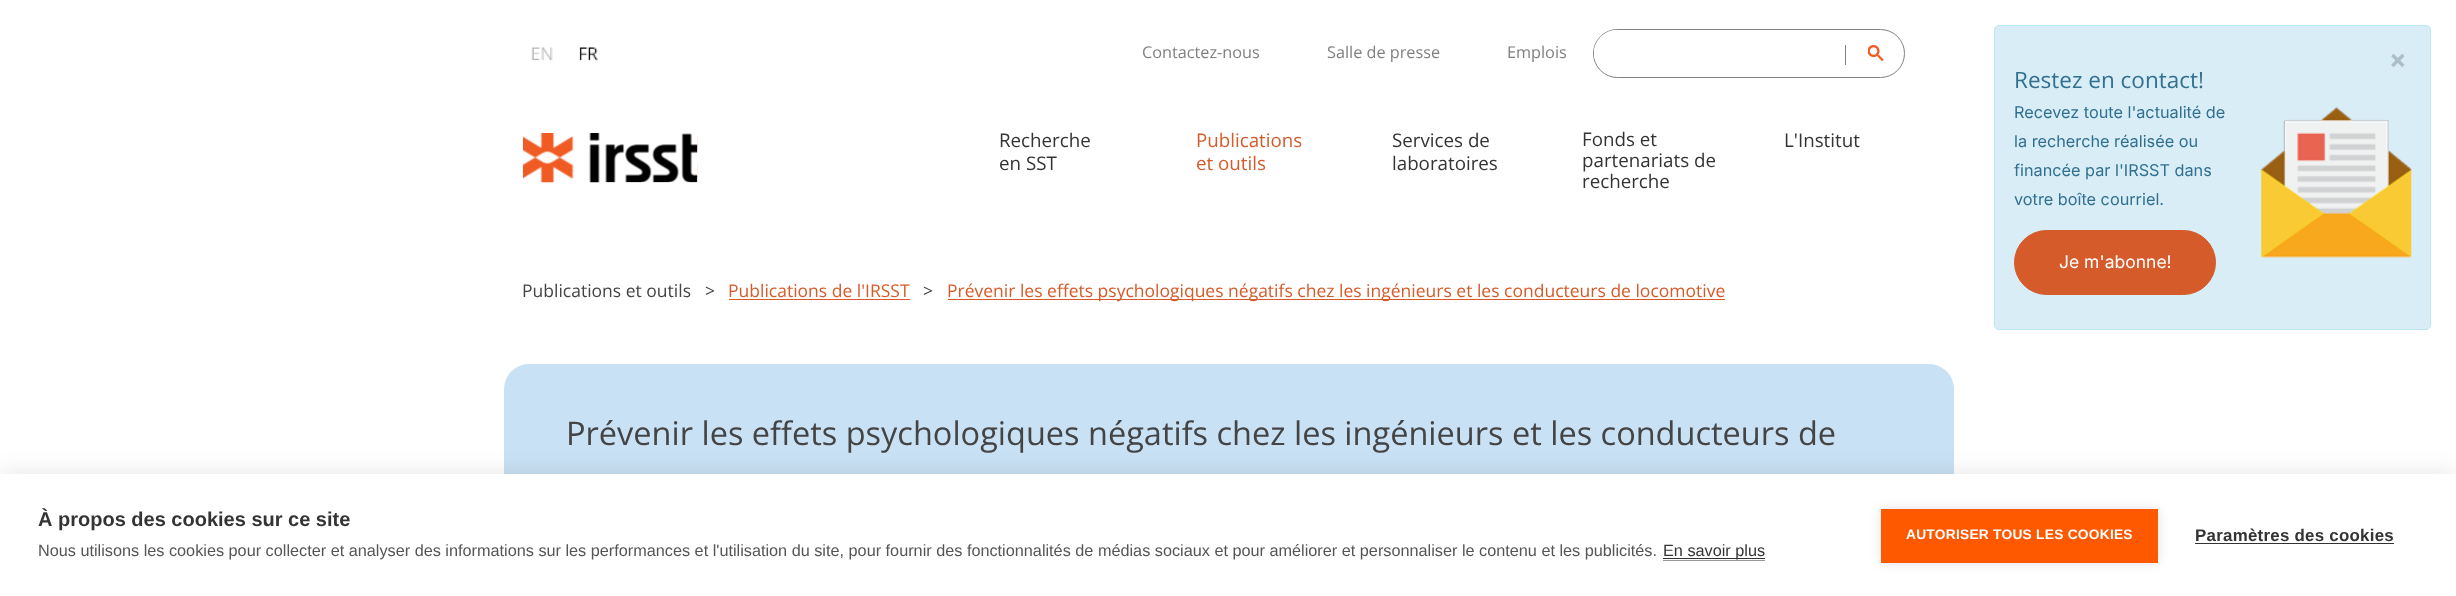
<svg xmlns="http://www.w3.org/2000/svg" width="2456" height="596">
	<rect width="100%" height="100%" fill="#FFFFFF" />
	<image x="531" y="47" width="22" height="14" href="assets/img1.png" />
	<image x="579" y="47" width="19" height="14" href="assets/img2.png" />
	<g font-family="Open Sans" font-size="16.25" fill="#808080">
		<text x="1142" y="58">Contactez-nous</text>
		<text x="1327" y="58">Salle de presse</text>
		<text x="1507" y="58">Emplois</text>
	</g>
	<rect x="1593.5" y="29.5" width="311" height="48" rx="24" fill="none" stroke="#808080" />
	<path d="M1617 30H1856V76H1617C1604.5 76 1594 65.5 1594 53C1594 40.5 1604.5 30 1617 30Z" fill="#FFFFFF" />
	<path d="M1617 30L1610 31H1855V75H1610L1617 76H1856V30ZM1595 60C1594 55 1594 51 1595 46Z" fill="#FFFFFF" fill-rule="evenodd" />
	<rect x="1845" y="45" width="1" height="20" fill="#808080" />
	<image x="1868" y="45" width="16" height="16" href="assets/img3.png" />
	<image x="523" y="133" width="175" height="50" href="assets/img4.png" />
	<g font-family="Open Sans" font-size="18.75" fill="#343434">
		<text x="999" y="147">Recherche</text>
		<text x="999" y="170">en SST</text>
	</g>
	<g font-family="Open Sans" font-size="18.75" fill="#D55B2B">
		<text x="1196" y="147">Publications</text>
		<text x="1196" y="170">et outils</text>
	</g>
	<g font-family="Open Sans" font-size="18.75" fill="#343434">
		<text x="1392" y="147">Services de</text>
		<text x="1392" y="170">laboratoires</text>
		<text x="1582" y="146">Fonds et</text>
		<text x="1582" y="167">partenariats de</text>
		<text x="1582" y="188">recherche</text>
		<text x="1784" y="147">L'Institut</text>
	</g>
	<g font-family="Open Sans" font-size="17.5" fill="#444444">
		<text x="522" y="297">Publications et outils</text>
		<text x="705" y="297">&gt;</text>
	</g>
	<text x="728" y="297" font-family="Open Sans" font-size="17.5" fill="#D55B2B">Publications de l'IRSST</text>
	<rect x="729" y="299" width="181" height="1" fill="#D55B2B" />
	<text x="923" y="297" font-family="Open Sans" font-size="17.5" fill="#444444">&gt;</text>
	<rect x="948" y="299" width="777" height="1" fill="#D55B2B" />
	<text x="947" y="297" font-family="Open Sans" font-size="17.5" fill="#D55B2B">Prévenir les effets psychologiques négatifs chez les ingénieurs et les conducteurs de locomotive</text>
	<rect x="504" y="364" width="1450" height="175" rx="25" fill="#C9E1F4" />
	<text x="566" y="445" font-family="Open Sans" font-size="32.5" fill="#444444">Prévenir les effets psychologiques négatifs chez les ingénieurs et les conducteurs de</text>
	<rect x="1994.5" y="25.5" width="436" height="304" rx="4.5" fill="#D9EDF7" stroke="#BCE8F1" />
	<text x="2389" y="68" font-family="Inter" font-size="26" font-weight="700" fill="#AEBEC6">×</text>
	<text x="2014" y="88" font-family="Open Sans" font-size="22.5" fill="#31708F">Restez en contact!</text>
	<text x="2014" y="118" font-family="Inter" font-size="16.25" fill="#31708F">Recevez toute l'actualité de</text>
	<image x="2261" y="107" width="151" height="151" href="assets/img5.png" />
	<g font-family="Inter" font-size="16.25" fill="#31708F">
		<text x="2014" y="147">la recherche réalisée ou</text>
		<text x="2014" y="176">financée par l'IRSST dans</text>
		<text x="2014" y="205">votre boîte courriel.</text>
	</g>
	<rect x="2014.5" y="230.5" width="201" height="64" rx="32" fill="#D55B2B" stroke="#D55B2B" />
	<text x="2059" y="268" font-family="Inter" font-size="17.5" fill="#FFFFFF">Je m'abonne!</text>
	<rect x="0" y="474" width="2456" height="122" fill="#000000" fill-opacity="0.1" filter="blur(12.5px)" />
	<rect x="0" y="474" width="2456" height="122" fill="#FFFFFF" />
	<text x="38" y="526" font-family="Liberation Sans" font-size="20" font-weight="700" fill="#343434">À propos des cookies sur ce site</text>
	<text x="38" y="556" font-family="Liberation Sans" font-size="16.25" fill="#555555">Nous utilisons les cookies pour collecter et analyser des informations sur les performances et l'utilisation du site, pour fournir des fonctionnalités de médias sociaux et pour améliorer et personnaliser le contenu et les publicités.</text>
	<rect x="1663" y="558" width="102" height="1" fill="#333333" />
	<text x="1663" y="556" font-family="Liberation Sans" font-size="16.25" fill="#343434">En savoir plus</text>
	<rect x="1663" y="560" width="102" height="1" fill="#999999" />
	<rect x="1881" y="509" width="277" height="54" fill="#000000" fill-opacity="0.12" filter="blur(6px)" />
	<rect x="1881" y="509" width="277" height="54" fill="#FF5900" />
	<text x="1906" y="539" font-family="Liberation Sans" font-size="13.75" font-weight="700" letter-spacing="0.25" fill="#FFFFFF">AUTORISER TOUS LES COOKIES</text>
	<text x="2195" y="541" font-family="Liberation Sans" font-size="16.9" font-weight="700" letter-spacing="0.25" fill="#343434">Paramètres des cookies</text>
	<rect x="2195" y="543" width="199" height="1" fill="#333333" />
</svg>
